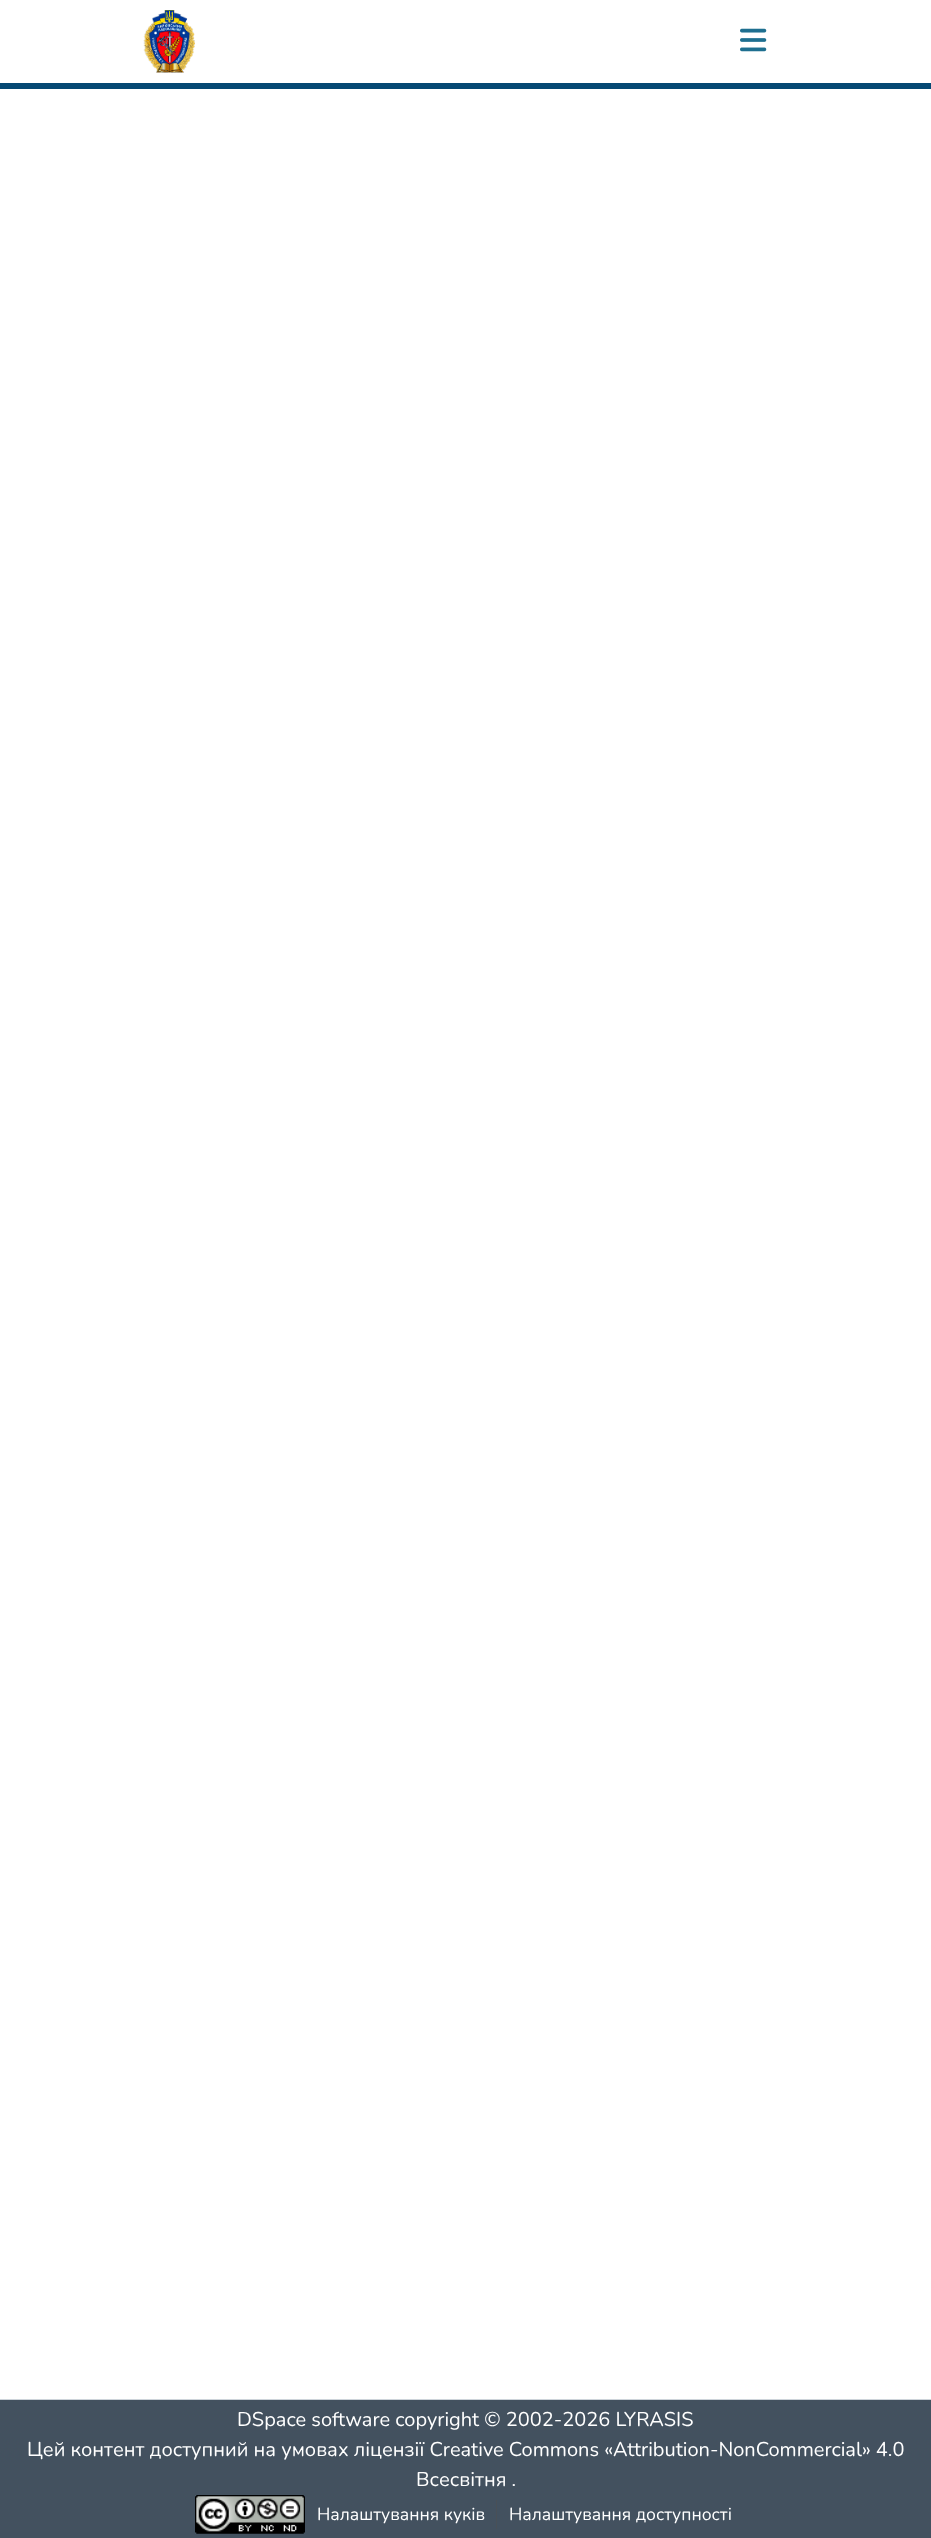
<svg xmlns="http://www.w3.org/2000/svg" width="931" height="2538">
	<rect width="100%" height="100%" fill="#FFFFFF" />
	<rect x="0" y="83" width="931" height="6" fill="#054873" />
	<image x="143" y="10" width="52" height="63" href="assets/img1.png" />
	<image x="740" y="28" width="27" height="24" href="assets/img2.png" />
	<rect x="0" y="2400" width="931" height="138" fill="#43515F" />
	<rect x="0" y="2399" width="931" height="1" fill="#CED4DA" />
	<g font-family="Nunito" font-size="20" fill="#FFFFFF">
		<text x="237" y="2426">DSpace software copyright © 2002-2026 LYRASIS</text>
		<text x="27" y="2456">Цей контент доступний на умовах ліцензії Creative Commons «Attribution-NonCommercial» 4.0</text>
		<text x="416" y="2486">Всесвітня .</text>
	</g>
	<image x="195" y="2495" width="110" height="39" href="assets/img3.png" />
	<text x="317" y="2520" font-family="Nunito" font-size="17.5" fill="#FFFFFF">Налаштування куків</text>
	<rect x="496" y="2500" width="1" height="29" fill="#495057" />
	<text x="509" y="2520" font-family="Nunito" font-size="17.5" fill="#FFFFFF">Налаштування доступності</text>
</svg>
